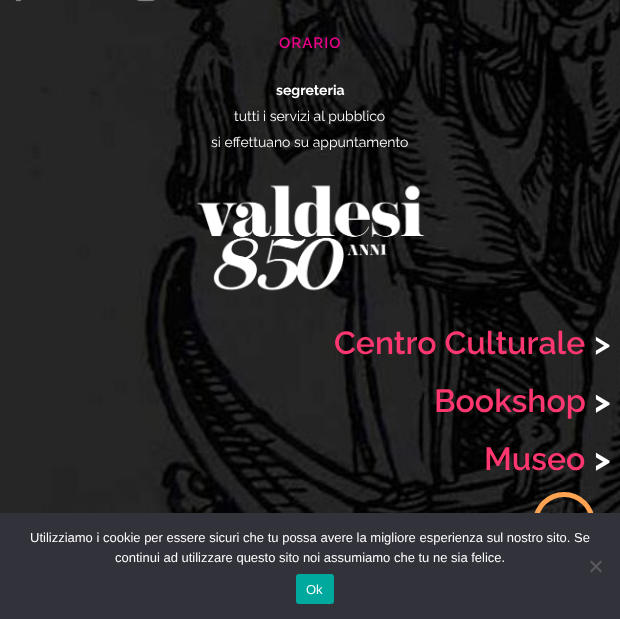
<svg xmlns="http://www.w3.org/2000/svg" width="620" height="619">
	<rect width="100%" height="100%" fill="#FFFFFF" />
	<image x="0" y="0" width="620" height="513" href="assets/img1.png" />
	<image x="15" y="0" width="6" height="2" href="assets/img2.png" />
	<image x="136" y="0" width="19" height="2" href="assets/img3.png" />
	<text x="279" y="48" font-family="Raleway" font-size="15" font-weight="600" letter-spacing="1" fill="#ED0089">ORARIO</text>
	<text x="276" y="95" font-family="Raleway" font-size="14" font-weight="700" fill="#FFFFFF">segreteria</text>
	<g font-family="Raleway" font-size="14" fill="#FFFFFF">
		<text x="234" y="121">tutti i servizi al pubblico</text>
		<text x="211" y="147">si effettuano su appuntamento</text>
	</g>
	<image x="197" y="185" width="228" height="106" href="assets/img4.png" />
	<text x="334" y="354" font-family="Raleway" font-size="32" font-weight="600" fill="#FE3770">Centro Culturale</text>
	<text x="594" y="354" font-family="Raleway" font-size="32" font-weight="600" fill="#FFFFFF">&gt;</text>
	<text x="434" y="412" font-family="Raleway" font-size="32" font-weight="600" fill="#FE3770">Bookshop</text>
	<text x="594" y="412" font-family="Raleway" font-size="32" font-weight="700" fill="#FFFFFF">&gt;</text>
	<text x="484" y="470" font-family="Raleway" font-size="32" font-weight="600" fill="#FE3770">Museo</text>
	<text x="594" y="470" font-family="Raleway" font-size="32" font-weight="700" fill="#FFFFFF">&gt;</text>
	<circle cx="564" cy="523" r="28.5" fill="none" stroke="#FFA352" stroke-width="5" />
	<rect x="0" y="513" width="620" height="106" fill="#32323A" />
	<g font-family="Liberation Sans" font-size="13" fill="#FFFFFF">
		<text x="30" y="542">Utilizziamo i cookie per essere sicuri che tu possa avere la migliore esperienza sul nostro sito. Se</text>
		<text x="115" y="562">continui ad utilizzare questo sito noi assumiamo che tu ne sia felice.</text>
	</g>
	<path d="M600.5 560.5L602 562L591.5 572.5L590 571Z" fill="#59595D" />
	<path d="M590 562L591.5 560.5L602 571L600.5 572.5Z" fill="#59595D" />
	<rect x="296" y="574" width="38" height="30" rx="3" fill="#00A99D" />
	<text x="306" y="594" font-family="Liberation Sans" font-size="13" fill="#FFFFFF">Ok</text>
</svg>
